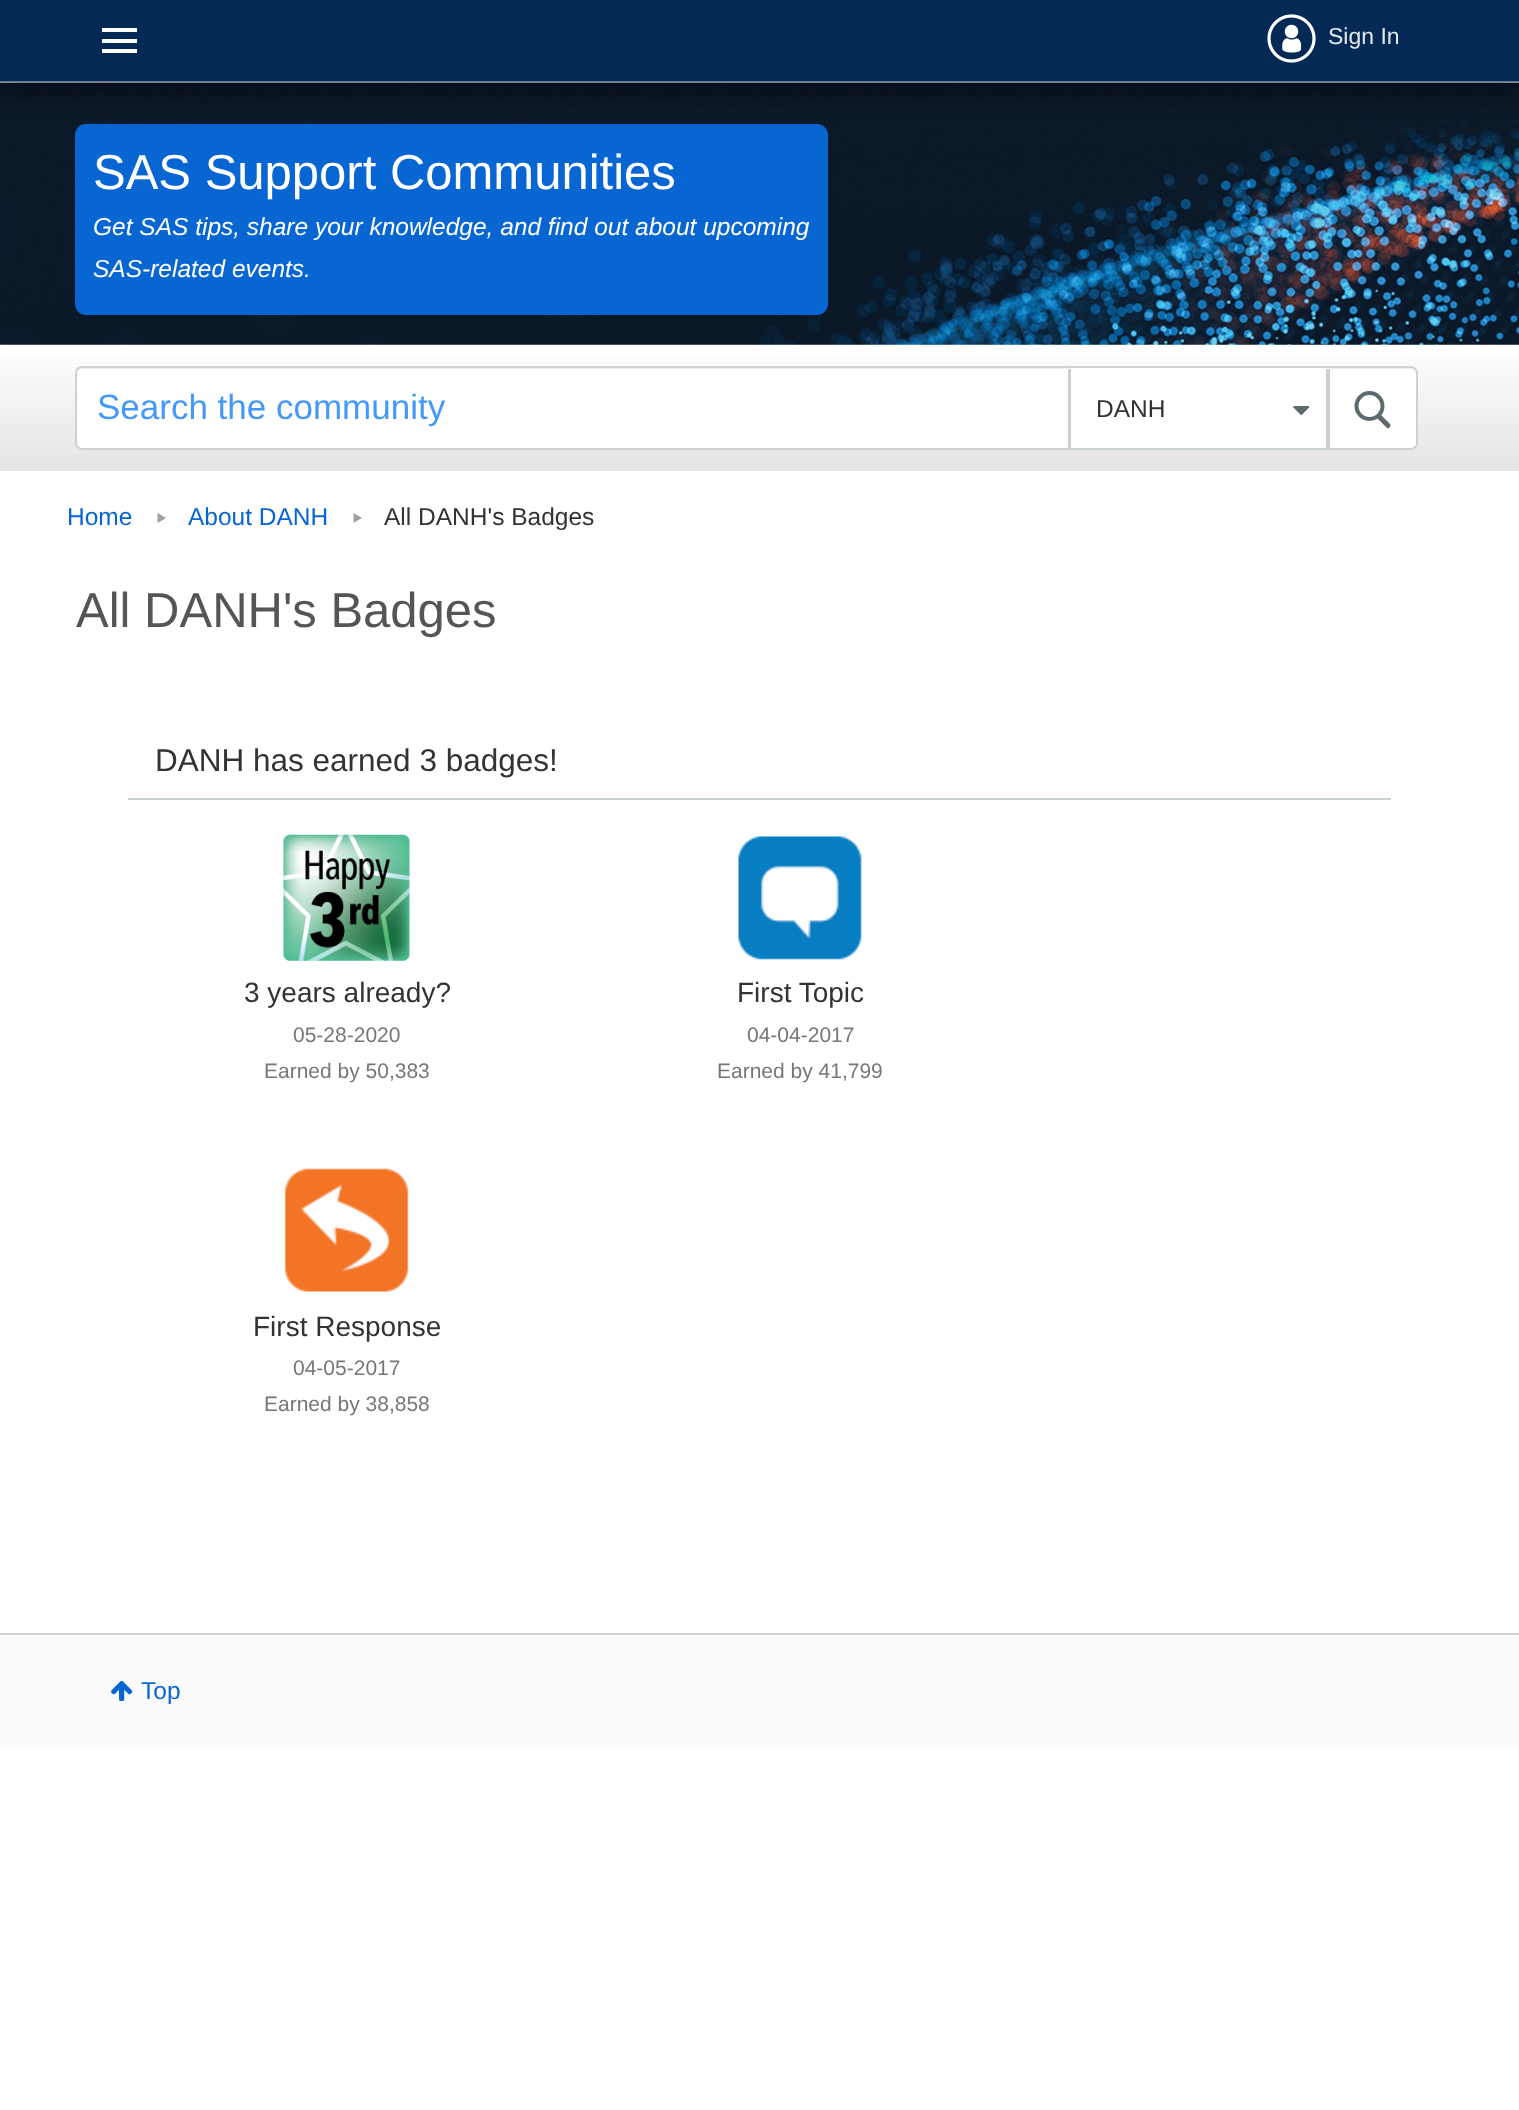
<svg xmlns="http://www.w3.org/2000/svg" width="1519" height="2110">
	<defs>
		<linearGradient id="g1" gradientUnits="userSpaceOnUse" x1="760" y1="345" x2="760" y2="471"><stop offset="0" stop-color="#FFFFFF" /><stop offset="1" stop-color="#E4E4E4" /></linearGradient>
	</defs>
	<rect width="100%" height="100%" fill="#FFFFFF" />
	<image x="0" y="82" width="1519" height="263" href="assets/img2.png" />
	<rect x="0" y="14" width="1519" height="82" fill="#000000" fill-opacity="0.4" filter="blur(10.5px)" />
	<rect x="0" y="0" width="1519" height="82" fill="#032954" />
	<rect x="0" y="81" width="1519" height="2" fill="#FFFFFF" fill-opacity="0.4" />
	<rect x="102" y="28" width="35" height="4" fill="#FFFFFF" />
	<rect x="102" y="39" width="35" height="4" fill="#FFFFFF" />
	<rect x="102" y="49" width="35" height="4" fill="#FFFFFF" />
	<image x="1267" y="14" width="49" height="49" href="assets/img1.png" />
	<text x="1328" y="44" font-family="Liberation Sans" font-size="23" fill="#E4E8EA">Sign In</text>
	<rect x="75" y="124" width="753" height="191" rx="11" fill="#0766D1" />
	<text x="93" y="189" font-family="Liberation Sans" font-size="49" fill="#FFFFFF">SAS Support Communities</text>
	<g font-family="Liberation Sans" font-size="24.5" font-style="italic" fill="#FFFFFF">
		<text x="93" y="235">Get SAS tips, share your knowledge, and find out about upcoming</text>
		<text x="93" y="277">SAS-related events.</text>
	</g>
	<rect x="0" y="357" width="1519" height="114" fill="url(#g1)" />
	<rect x="75" y="366" width="1343" height="84" rx="7" fill="#FFFFFF" />
	<path d="M82 369H1410C1413 369 1416 372 1416 374C1416 371 1414 368 1411 368H82C79 368 77 371 77 374C77 372 79 369 82 369Z" fill="#ECECEC" />
	<rect x="76" y="367" width="1341" height="82" rx="6" fill="none" stroke="#D0D0D0" stroke-width="2" />
	<text x="97" y="419" font-family="Liberation Sans" font-size="35" fill="#4398F9">Search the community</text>
	<circle cx="1369.5" cy="406" r="13" fill="none" stroke="#5C6A6E" stroke-width="4" />
	<path d="M1379.5 417L1388 425.5" fill="none" stroke="#5C6A6E" stroke-width="5" stroke-linecap="round" />
	<path d="M1072 366H1330V448H1072C1070 448 1068 446 1068 444V370C1068 368 1070 366 1072 366Z" fill="#FFFFFF" />
	<rect x="1069" y="366" width="261" height="2" fill="#D0D0D0" />
	<path d="M1330 369V450L1326 448V369Z" fill="#D0D0D0" />
	<path d="M1330 450H1068L1071 448H1326Z" fill="#CBD3D5" />
	<path d="M1068 450V369H1071V448Z" fill="#D0D0D0" />
	<text x="1096" y="417" font-family="Liberation Sans" font-size="24.5" fill="#333333">DANH</text>
	<image x="1293" y="406" width="17" height="9" href="assets/img3.png" />
	<text x="67" y="525" font-family="Liberation Sans" font-size="24.5" fill="#0766D1">Home</text>
	<path d="M166 518L157.5 523V513Z" fill="#A1A1A1" />
	<text x="188" y="525" font-family="Liberation Sans" font-size="24.5" fill="#0766D1">About DANH</text>
	<path d="M362 518L353.5 523V513Z" fill="#A1A1A1" />
	<text x="384" y="525" font-family="Liberation Sans" font-size="24.5" fill="#333333">All DANH's Badges</text>
	<text x="76" y="627" font-family="Liberation Sans" font-size="49" fill="#555555">All DANH's Badges</text>
	<rect x="128" y="798" width="1263" height="2" fill="#CBD3D5" />
	<text x="155" y="771" font-family="Liberation Sans" font-size="31.5" fill="#333333">DANH has earned 3 badges!</text>
	<image x="283" y="834" width="127" height="127" href="assets/img4.png" />
	<text x="244" y="1002" font-family="Liberation Sans" font-size="28" fill="#333333">3 years already?</text>
	<g font-family="Liberation Sans" font-size="21" fill="#777777">
		<text x="293" y="1042">05-28-2020</text>
		<text x="264" y="1078">Earned by 50,383</text>
	</g>
	<image x="738" y="836" width="124" height="124" href="assets/img5.png" />
	<text x="737" y="1002" font-family="Liberation Sans" font-size="28" fill="#333333">First Topic</text>
	<g font-family="Liberation Sans" font-size="21" fill="#777777">
		<text x="747" y="1042">04-04-2017</text>
		<text x="717" y="1078">Earned by 41,799</text>
	</g>
	<image x="284" y="1168" width="125" height="124" href="assets/img6.png" />
	<text x="253" y="1336" font-family="Liberation Sans" font-size="28" fill="#333333">First Response</text>
	<g font-family="Liberation Sans" font-size="21" fill="#777777">
		<text x="293" y="1375">04-05-2017</text>
		<text x="264" y="1411">Earned by 38,858</text>
	</g>
	<rect x="0" y="1635" width="1519" height="112" fill="#FBFBFB" />
	<rect x="0" y="1633" width="1519" height="2" fill="#CBD3D5" />
	<image x="111" y="1680" width="22" height="21" href="assets/img7.png" />
	<text x="141" y="1699" font-family="Liberation Sans" font-size="24.5" fill="#0766D1">Top</text>
</svg>
